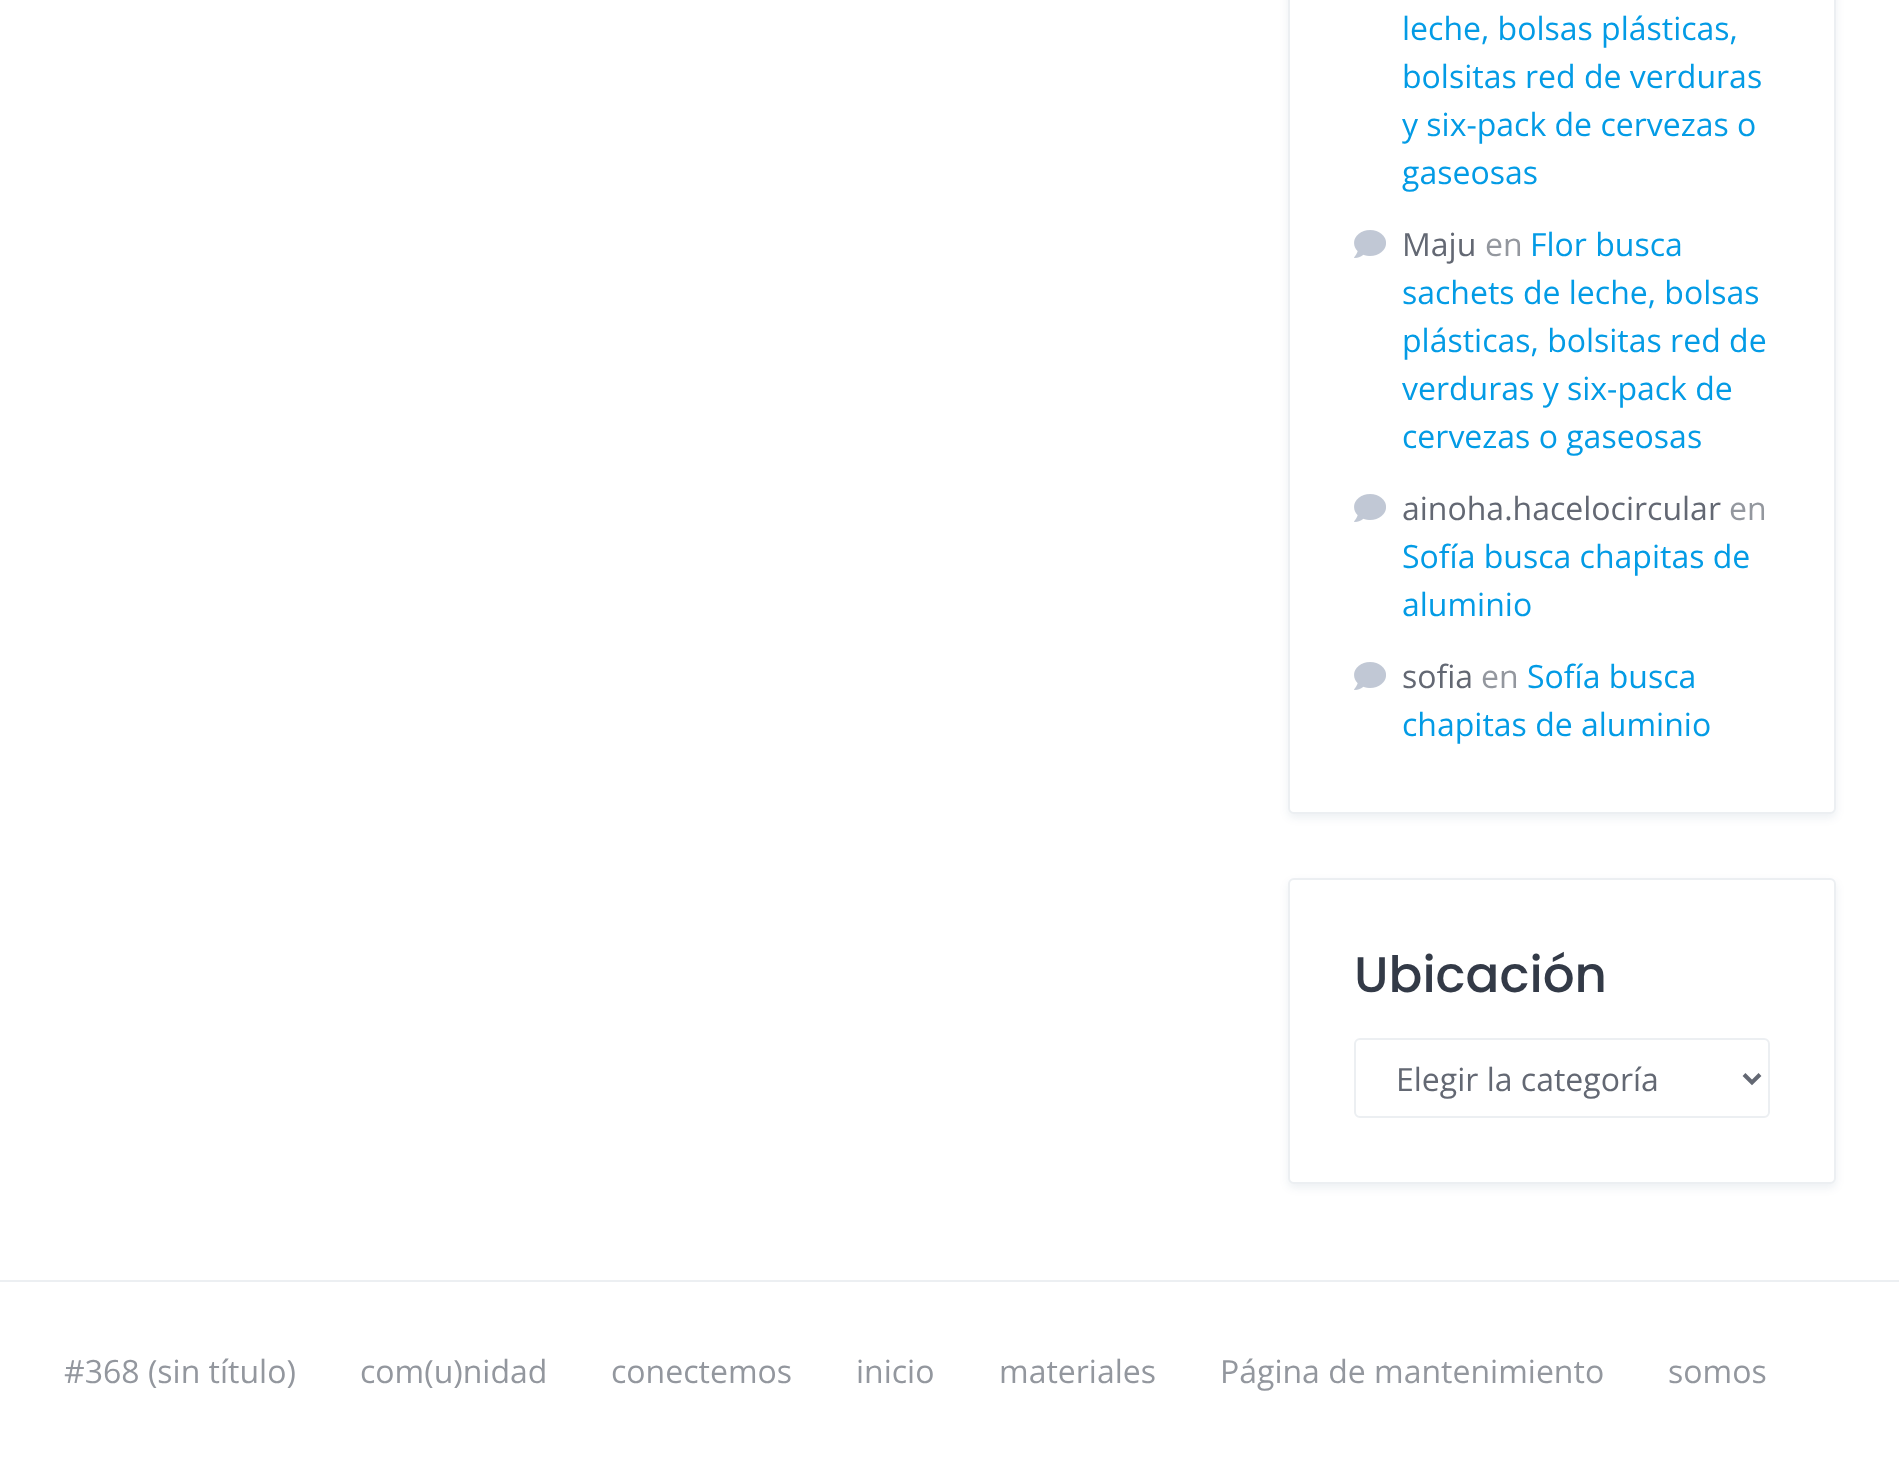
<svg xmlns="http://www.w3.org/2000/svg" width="1899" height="1458">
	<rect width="100%" height="100%" fill="#FFFFFF" />
	<rect x="1288" y="-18" width="548" height="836" rx="6" fill="#072456" fill-opacity="0.07" filter="blur(4px)" />
	<rect x="1289" y="-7" width="546" height="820" rx="5" fill="#FFFFFF" stroke="#ECEFF2" stroke-width="2" />
	<g font-family="Open Sans" font-size="32" fill="#039BE5">
		<text x="1402" y="40">leche, bolsas plásticas,</text>
		<text x="1402" y="88">bolsitas red de verduras</text>
		<text x="1402" y="136">y six-pack de cervezas o</text>
		<text x="1402" y="184">gaseosas</text>
	</g>
	<image x="1354" y="230" width="32" height="28" href="assets/img1.png" />
	<text x="1402" y="256" font-family="Open Sans" font-size="32" fill="#636873">Maju</text>
	<text x="1485" y="256" font-family="Open Sans" font-size="32" fill="#93979E">en</text>
	<g font-family="Open Sans" font-size="32" fill="#039BE5">
		<text x="1530" y="256">Flor busca</text>
		<text x="1402" y="304">sachets de leche, bolsas</text>
		<text x="1402" y="352">plásticas, bolsitas red de</text>
		<text x="1402" y="400">verduras y six-pack de</text>
		<text x="1402" y="448">cervezas o gaseosas</text>
	</g>
	<image x="1354" y="494" width="32" height="28" href="assets/img1.png" />
	<text x="1402" y="520" font-family="Open Sans" font-size="32" fill="#636873">ainoha.hacelocircular</text>
	<text x="1729" y="520" font-family="Open Sans" font-size="32" fill="#93979E">en</text>
	<g font-family="Open Sans" font-size="32" fill="#039BE5">
		<text x="1402" y="568">Sofía busca chapitas de</text>
		<text x="1402" y="616">aluminio</text>
	</g>
	<image x="1354" y="662" width="32" height="28" href="assets/img1.png" />
	<text x="1402" y="688" font-family="Open Sans" font-size="32" fill="#636873">sofia</text>
	<text x="1481" y="688" font-family="Open Sans" font-size="32" fill="#93979E">en</text>
	<g font-family="Open Sans" font-size="32" fill="#039BE5">
		<text x="1527" y="688">Sofía busca</text>
		<text x="1402" y="736">chapitas de aluminio</text>
	</g>
	<rect x="1288" y="882" width="548" height="306" rx="6" fill="#072456" fill-opacity="0.07" filter="blur(4px)" />
	<rect x="1289" y="879" width="546" height="304" rx="5" fill="#FFFFFF" stroke="#ECEFF2" stroke-width="2" />
	<text x="1354" y="992" font-family="Poppins" font-size="50" font-weight="500" fill="#333A47">Ubicación</text>
	<rect x="1355" y="1039" width="414" height="78" rx="5" fill="none" stroke="#ECEFF2" stroke-width="2" />
	<path d="M1744 1074.5L1752 1082.5L1760 1074.5" fill="none" stroke="#636873" stroke-width="4" />
	<text x="1396" y="1091" font-family="Open Sans" font-size="32" fill="#636873">Elegir la categoría</text>
	<rect x="0" y="1280" width="1899" height="2" fill="#ECEFF2" />
	<g font-family="Open Sans" font-size="32" fill="#93979E">
		<text x="64" y="1383">#368 (sin título)</text>
		<text x="360" y="1383">com(u)nidad</text>
		<text x="611" y="1383">conectemos</text>
		<text x="856" y="1383">inicio</text>
		<text x="999" y="1383">materiales</text>
		<text x="1220" y="1383">Página de mantenimiento</text>
		<text x="1668" y="1383">somos</text>
	</g>
</svg>
